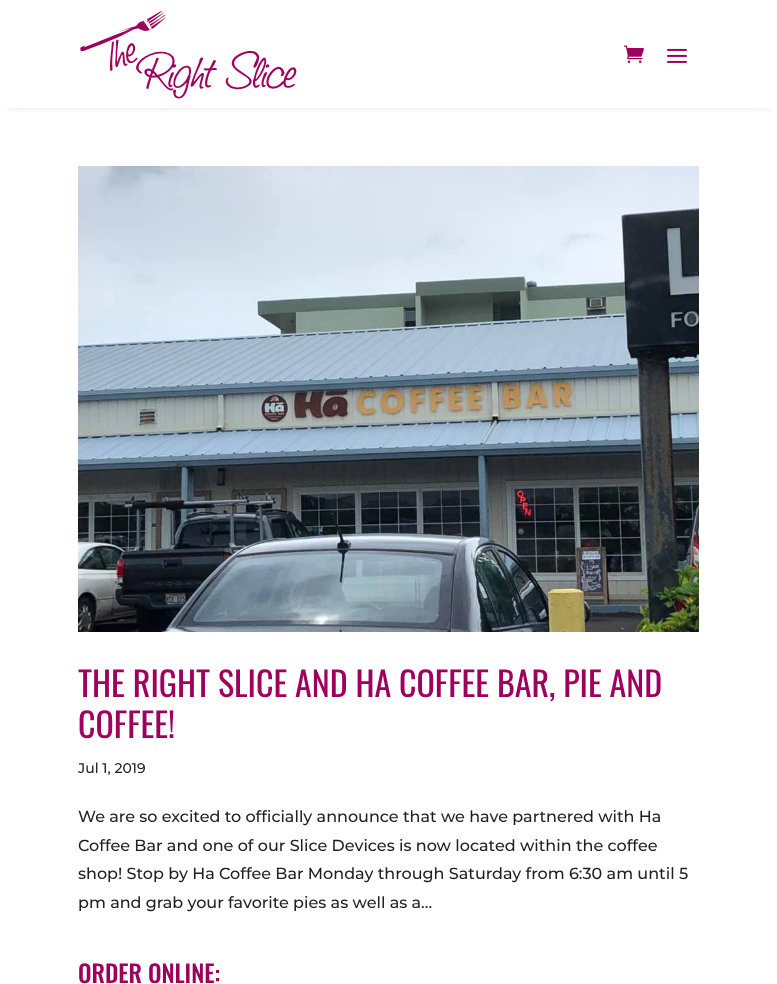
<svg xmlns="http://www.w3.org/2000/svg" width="777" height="984">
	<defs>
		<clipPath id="clip1"><rect x="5" y="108" width="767" height="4" /></clipPath>
	</defs>
	<rect width="100%" height="100%" fill="#FFFFFF" />
	<g clip-path="url(#clip1)">
		<rect x="6" y="6" width="765" height="96" fill="#000000" fill-opacity="0.3" filter="blur(6.5px)" />
	</g>
	<image x="80" y="10" width="217" height="89" href="assets/img1.png" />
	<image x="624" y="45" width="20" height="18" href="assets/img2.png" />
	<image x="667" y="48" width="20" height="15" href="assets/img3.png" />
	<image x="78" y="166" width="621" height="466" href="assets/img4.png" />
	<g font-family="Oswald" font-size="34" fill="#9E015D">
		<text x="78" y="697">THE RIGHT SLICE AND HA COFFEE BAR, PIE AND</text>
		<text x="78" y="738">COFFEE!</text>
	</g>
	<text x="78" y="773" font-family="Montserrat" font-size="14" font-weight="500" fill="#1F1F1F">Jul 1, 2019</text>
	<g font-family="Montserrat" font-size="16" font-weight="500" fill="#1F1F1F">
		<text x="78" y="822">We are so excited to officially announce that we have partnered with Ha</text>
		<text x="78" y="851">Coffee Bar and one of our Slice Devices is now located within the coffee</text>
		<text x="78" y="879">shop! Stop by Ha Coffee Bar Monday through Saturday from 6:30 am until 5</text>
		<text x="78" y="908">pm and grab your favorite pies as well as a...</text>
	</g>
	<text x="78" y="983" font-family="Oswald" font-size="24" font-weight="500" fill="#9E015D">ORDER ONLINE:</text>
</svg>
